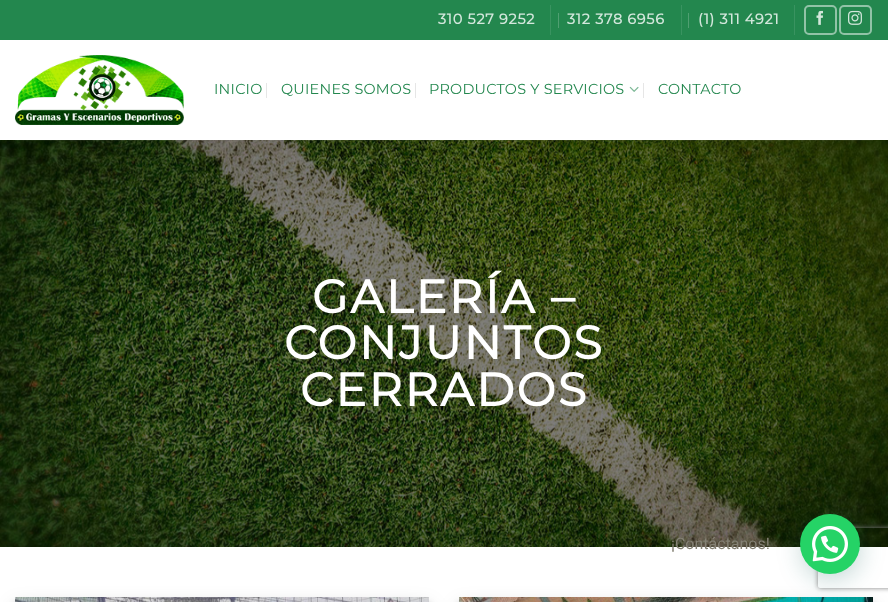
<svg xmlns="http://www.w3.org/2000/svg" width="888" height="602">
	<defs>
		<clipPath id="clip1"><path d="M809 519H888V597H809ZM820 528H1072C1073 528 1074 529 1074 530V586C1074 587 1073 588 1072 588H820C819 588 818 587 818 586V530C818 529 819 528 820 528Z" clip-rule="evenodd" /></clipPath>
	</defs>
	<rect width="100%" height="100%" fill="#FFFFFF" />
	<rect x="0" y="0" width="888" height="40" fill="#23874E" />
	<text x="438" y="24" font-family="Montserrat" font-size="14.4" font-weight="700" letter-spacing="0.75" fill="#D3E7DC">310 527 9252</text>
	<rect x="550" y="5" width="1" height="30" fill="#399360" />
	<rect x="558" y="13" width="1" height="15" fill="#4F9F71" />
	<text x="567" y="24" font-family="Montserrat" font-size="14.4" font-weight="700" letter-spacing="0.75" fill="#D3E7DC">312 378 6956</text>
	<rect x="681" y="5" width="1" height="30" fill="#399360" />
	<rect x="688" y="13" width="1" height="15" fill="#4F9F71" />
	<text x="698" y="24" font-family="Montserrat" font-size="14.4" font-weight="700" letter-spacing="0.75" fill="#D3E7DC">(1) 311 4921</text>
	<rect x="794" y="5" width="1" height="30" fill="#399360" />
	<rect x="805" y="6" width="31" height="28" rx="4" fill="none" stroke="#91C3A7" stroke-width="2" />
	<image x="816" y="10" width="7" height="15" href="assets/img1.png" />
	<rect x="840" y="6" width="31" height="28" rx="4" fill="none" stroke="#91C3A7" stroke-width="2" />
	<image x="848" y="10" width="14" height="15" href="assets/img2.png" />
	<image x="15" y="55" width="169" height="70" href="assets/img3.png" />
	<text x="214" y="94" font-family="Montserrat" font-size="14.4" font-weight="100" letter-spacing="0.25" fill="#23874E">INICIO</text>
	<rect x="266" y="83" width="1" height="15" fill="#E6E6E6" />
	<text x="281" y="94" font-family="Montserrat" font-size="14.4" font-weight="100" letter-spacing="0.25" fill="#23874E">QUIENES SOMOS</text>
	<rect x="415" y="83" width="1" height="15" fill="#E6E6E6" />
	<text x="429" y="94" font-family="Montserrat" font-size="14.4" font-weight="100" letter-spacing="0.25" fill="#23874E">PRODUCTOS Y SERVICIOS</text>
	<image x="629" y="86" width="10" height="6" href="assets/img4.png" />
	<rect x="643" y="83" width="1" height="15" fill="#E6E6E6" />
	<text x="658" y="94" font-family="Montserrat" font-size="14.4" font-weight="100" letter-spacing="0.25" fill="#23874E">CONTACTO</text>
	<image x="0" y="140" width="888" height="407" href="assets/img5.png" />
	<rect x="15" y="140" width="858" height="1" fill="#777777" fill-opacity="0.1" />
	<g font-family="Montserrat" font-size="46.5" font-weight="700" letter-spacing="2.25" fill="#FFFFFF">
		<text x="312" y="313">GALERÍA –</text>
		<text x="284" y="359">CONJUNTOS</text>
		<text x="300" y="406">CERRADOS</text>
	</g>
	<rect x="15" y="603" width="414" height="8" fill="#000000" fill-opacity="0.22" filter="blur(3px)" />
	<rect x="15" y="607" width="414" height="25" fill="#000000" fill-opacity="0.19" filter="blur(10px)" />
	<image x="15" y="597" width="414" height="5" href="assets/img6.png" />
	<rect x="459" y="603" width="414" height="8" fill="#000000" fill-opacity="0.22" filter="blur(3px)" />
	<rect x="459" y="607" width="414" height="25" fill="#000000" fill-opacity="0.19" filter="blur(10px)" />
	<image x="459" y="597" width="414" height="5" href="assets/img7.png" />
	<rect x="801" y="520" width="60" height="60" rx="30" fill="#075E54" fill-opacity="0.24" filter="blur(12px)" />
	<g clip-path="url(#clip1)">
		<rect x="818" y="528" width="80" height="60" rx="2" fill="#808080" filter="blur(2.5px)" />
	</g>
	<circle cx="830" cy="544" r="30" fill="#25D366" />
	<image x="812" y="526" width="36" height="36" href="assets/img8.png" />
	<text x="671" y="549" font-family="Roboto" font-size="16" fill="#848174">¡Contáctanos!</text>
</svg>
